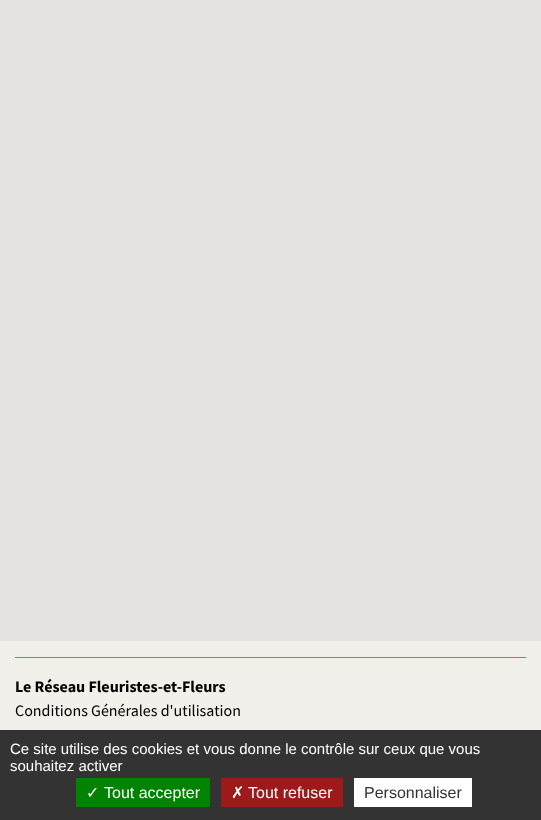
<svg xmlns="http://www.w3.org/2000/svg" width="541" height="820">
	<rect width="100%" height="100%" fill="#F1F0EB" />
	<rect x="0" y="0" width="541" height="641" fill="#E5E3DF" />
	<rect x="15" y="657" width="511" height="1" fill="#EA601F" />
	<text x="15" y="692" font-family="Source Sans Pro" font-size="16" font-weight="700" fill="#000000">Le Réseau Fleuristes-et-Fleurs</text>
	<text x="15" y="716" font-family="Source Sans Pro" font-size="16" fill="#000000">Conditions Générales d'utilisation</text>
	<rect x="0" y="730" width="541" height="90" fill="#333333" />
	<g font-family="Liberation Sans" font-size="15" fill="#FFFFFF">
		<text x="10" y="754">Ce site utilise des cookies et vous donne le contrôle sur ceux que vous</text>
		<text x="10" y="771">souhaitez activer</text>
	</g>
	<rect x="76" y="778" width="134" height="29" fill="#008300" />
	<text x="86" y="798" font-family="DejaVu Sans" font-size="16" fill="#FFFFFF">✓</text>
	<text x="104" y="798" font-family="Liberation Sans" font-size="16" fill="#FFFFFF">Tout accepter</text>
	<rect x="221" y="778" width="122" height="29" fill="#9C1A1A" />
	<text x="231" y="798" font-family="DejaVu Sans" font-size="16" fill="#FFFFFF">✗</text>
	<text x="248" y="798" font-family="Liberation Sans" font-size="16" fill="#FFFFFF">Tout refuser</text>
	<rect x="354" y="778" width="118" height="29" fill="#FFFFFF" />
	<text x="364" y="798" font-family="Liberation Sans" font-size="16" fill="#333333">Personnaliser</text>
</svg>
